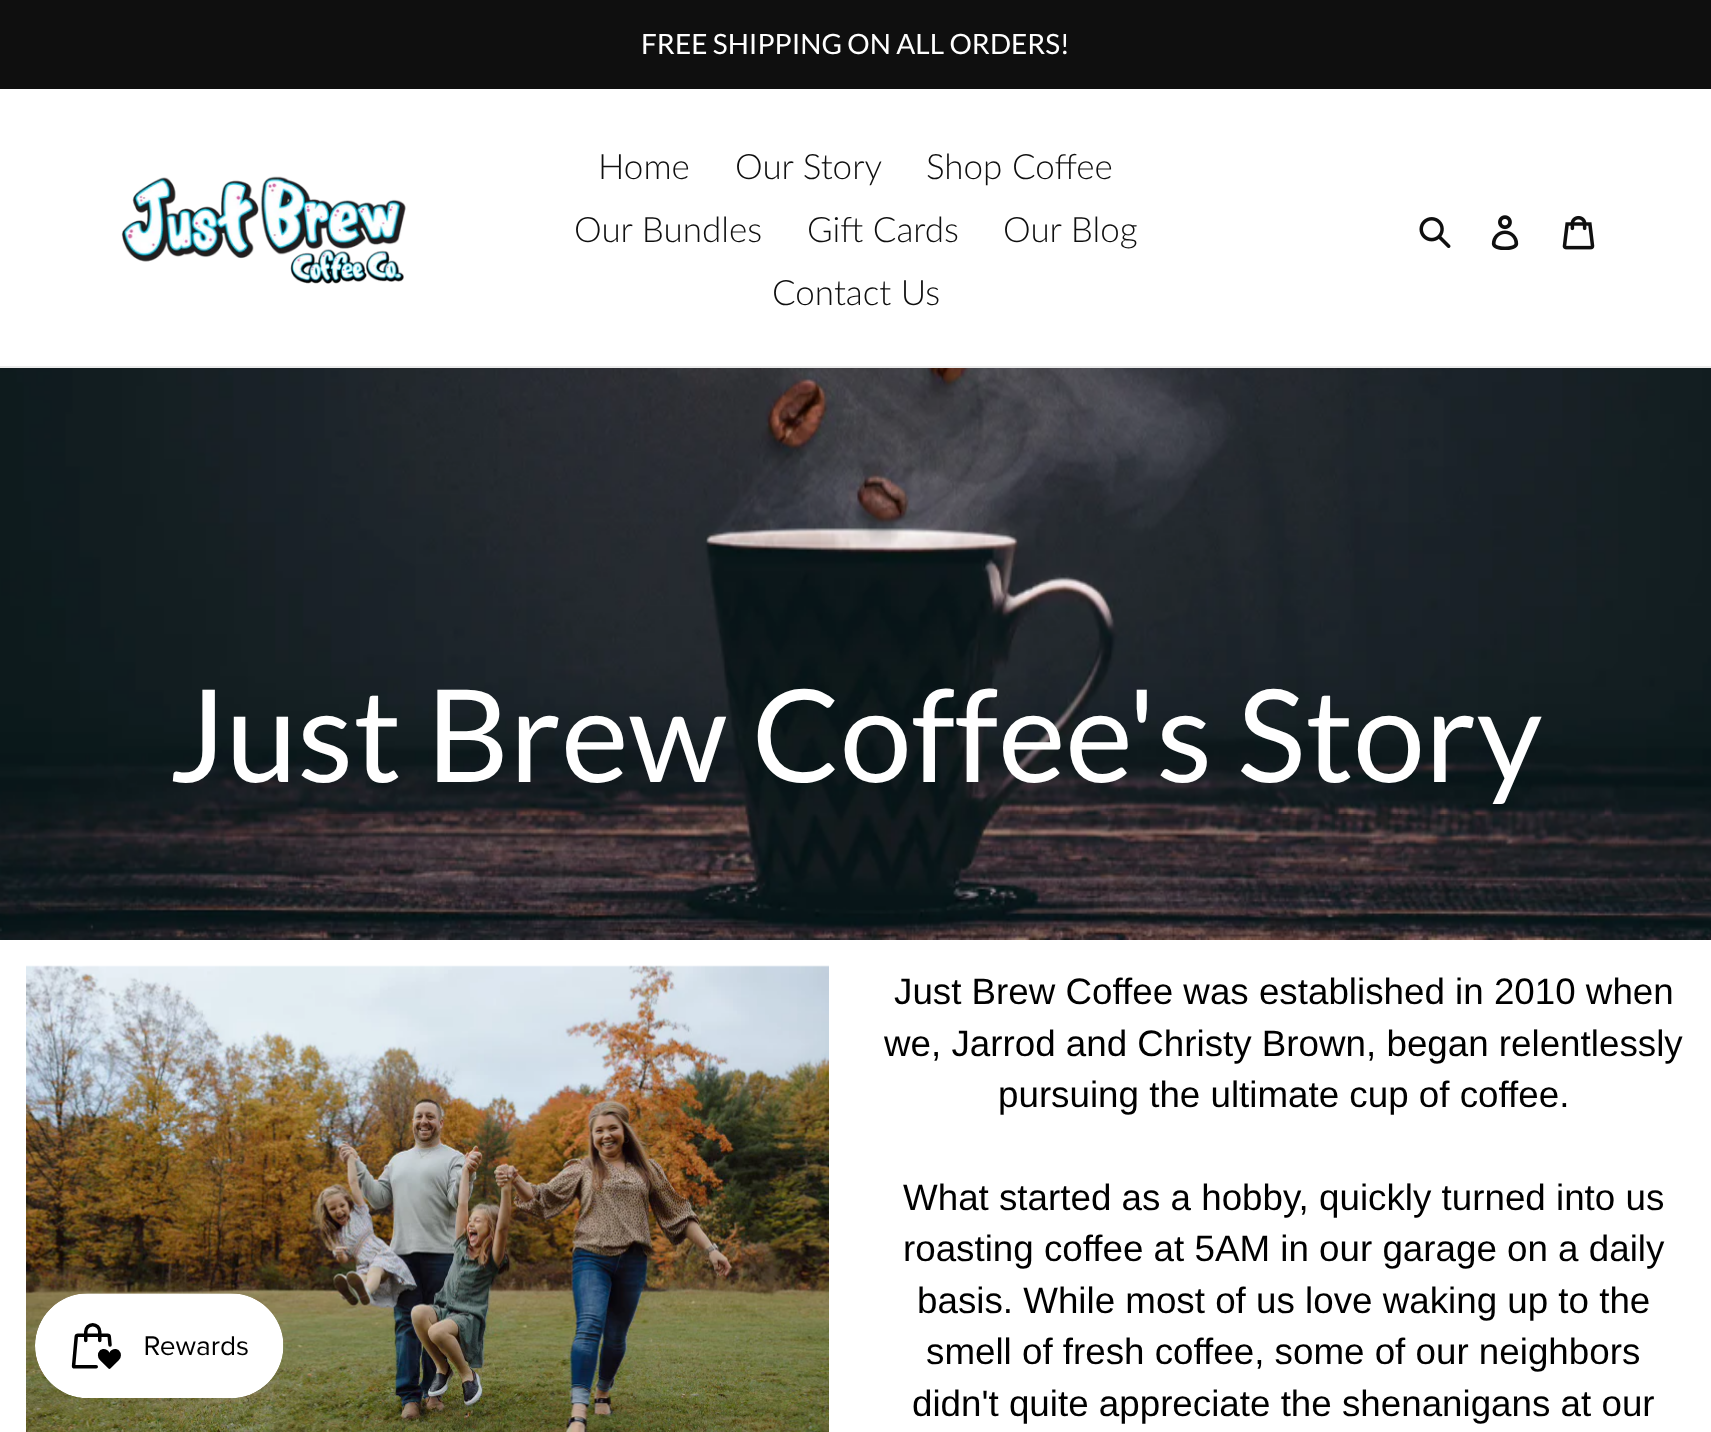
<svg xmlns="http://www.w3.org/2000/svg" width="1711" height="1432">
	<rect width="100%" height="100%" fill="#FFFFFF" />
	<rect x="0" y="0" width="1711" height="89" fill="#0F0F0F" />
	<text x="641" y="54" font-family="Lato" font-size="28" fill="#FFFFFF">FREE SHIPPING ON ALL ORDERS!</text>
	<rect x="0" y="366" width="1711" height="2" fill="#EBEBEB" />
	<image x="121" y="176" width="285" height="108" href="assets/img1.png" />
	<g font-family="Lato" font-size="35" font-weight="300" fill="#0F0F0F">
		<text x="598" y="179">Home</text>
		<text x="735" y="179">Our Story</text>
		<text x="926" y="179">Shop Coffee</text>
		<text x="574" y="242">Our Bundles</text>
		<text x="807" y="242">Gift Cards</text>
		<text x="1003" y="242">Our Blog</text>
		<text x="772" y="305">Contact Us</text>
	</g>
	<image x="1419" y="217" width="32" height="31" href="assets/img2.png" />
	<image x="1491" y="215" width="28" height="35" href="assets/img3.png" />
	<image x="1562" y="215" width="33" height="35" href="assets/img4.png" />
	<image x="26" y="965" width="803" height="467" href="assets/img7.png" />
	<image x="35" y="1293" width="249" height="105" href="assets/img5.png" />
	<image x="0" y="368" width="1711" height="572" href="assets/img6.png" />
	<text x="169" y="782" font-family="Lato" font-size="128.6" fill="#FFFFFF">Just Brew Coffee's Story</text>
	<g font-family="Liberation Sans" font-size="36.75" fill="#000000">
		<text x="894" y="1004">Just Brew Coffee was established in 2010 when</text>
		<text x="884" y="1056">we, Jarrod and Christy Brown, began relentlessly</text>
		<text x="998" y="1107">pursuing the ultimate cup of coffee.</text>
		<text x="903" y="1210">What started as a hobby, quickly turned into us</text>
		<text x="903" y="1261">roasting coffee at 5AM in our garage on a daily</text>
		<text x="917" y="1313">basis. While most of us love waking up to the</text>
		<text x="926" y="1364">smell of fresh coffee, some of our neighbors</text>
		<text x="912" y="1416">didn't quite appreciate the shenanigans at our</text>
	</g>
</svg>
